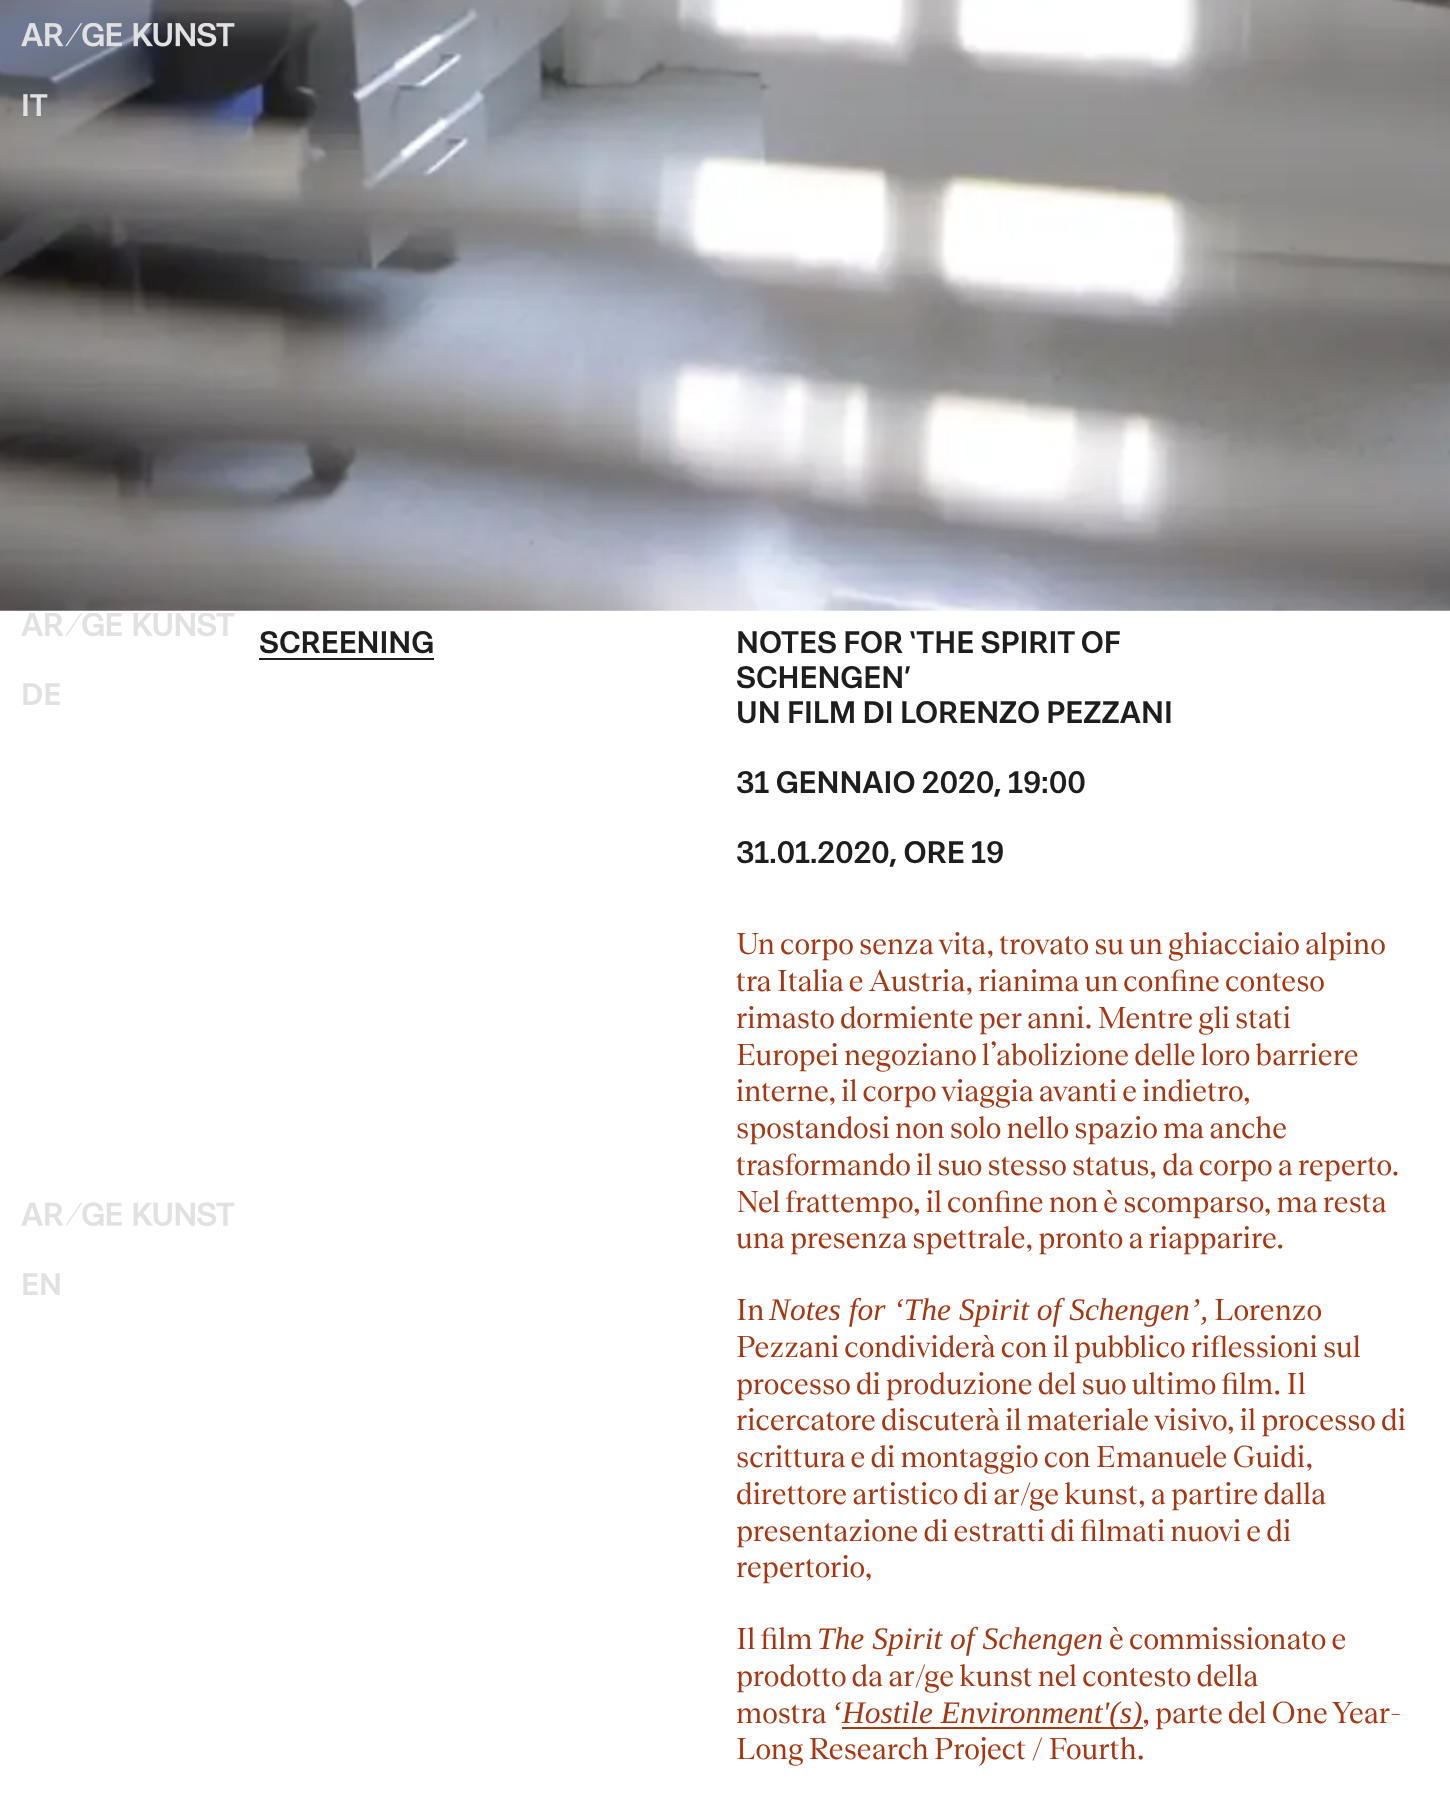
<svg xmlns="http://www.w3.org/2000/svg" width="1450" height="1811">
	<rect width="100%" height="100%" fill="#FFFFFF" />
	<image x="0" y="0" width="1450" height="611" href="assets/img4.png" />
	<image x="21" y="23" width="214" height="24" href="assets/img1.png" />
	<text x="21" y="116" font-family="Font" font-size="31.5" font-weight="500" fill="#E1E1E1">IT</text>
	<image x="21" y="613" width="214" height="24" href="assets/img2.png" />
	<text x="21" y="705" font-family="Font" font-size="31.5" font-weight="500" fill="#E1E1E1">DE</text>
	<image x="21" y="1202" width="214" height="24" href="assets/img3.png" />
	<text x="21" y="1295" font-family="Font" font-size="31.5" font-weight="500" fill="#E1E1E1">EN</text>
	<text x="259" y="653" font-family="Font" font-size="31.5" font-weight="500" fill="#1E1E1E">SCREENING</text>
	<rect x="259" y="658" width="175" height="2" fill="#1E1E1E" />
	<g font-family="Font" font-size="31.5" font-weight="500" fill="#1E1E1E">
		<text x="736" y="653">NOTES FOR ‘THE SPIRIT OF</text>
		<text x="736" y="688">SCHENGEN’</text>
		<text x="736" y="723">UN FILM DI LORENZO PEZZANI</text>
		<text x="736" y="793">31 GENNAIO 2020, 19:00</text>
		<text x="736" y="863">31.01.2020, ORE 19</text>
	</g>
	<g font-family="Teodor" font-size="31.5" fill="#A83711">
		<text x="736" y="954">Un corpo senza vita, trovato su un ghiacciaio alpino</text>
		<text x="736" y="991">tra Italia e Austria, rianima un confine conteso</text>
		<text x="736" y="1028">rimasto dormiente per anni. Mentre gli stati</text>
		<text x="736" y="1065">Europei negoziano l’abolizione delle loro barriere</text>
		<text x="736" y="1101">interne, il corpo viaggia avanti e indietro,</text>
		<text x="736" y="1138">spostandosi non solo nello spazio ma anche</text>
		<text x="736" y="1175">trasformando il suo stesso status, da corpo a reperto.</text>
		<text x="736" y="1212">Nel frattempo, il confine non è scomparso, ma resta</text>
		<text x="736" y="1248">una presenza spettrale, pronto a riapparire.</text>
		<text x="736" y="1320">In</text>
	</g>
	<text x="769" y="1320" font-family="Liberation Serif" font-size="31.5" font-style="italic" fill="#A83711">Notes for ‘The Spirit of Schengen’,</text>
	<g font-family="Teodor" font-size="31.5" fill="#A83711">
		<text x="1214" y="1320">Lorenzo</text>
		<text x="736" y="1357">Pezzani condividerà con il pubblico riflessioni sul</text>
		<text x="736" y="1394">processo di produzione del suo ultimo film. Il</text>
		<text x="736" y="1430">ricercatore discuterà il materiale visivo, il processo di</text>
		<text x="736" y="1467">scrittura e di montaggio con Emanuele Guidi,</text>
		<text x="736" y="1504">direttore artistico di ar/ge kunst, a partire dalla</text>
		<text x="736" y="1541">presentazione di estratti di filmati nuovi e di</text>
		<text x="736" y="1577">repertorio,</text>
		<text x="736" y="1649">Il film</text>
	</g>
	<text x="817" y="1649" font-family="Liberation Serif" font-size="31.5" font-style="italic" fill="#A83711">The Spirit of Schengen</text>
	<g font-family="Teodor" font-size="31.5" fill="#A83711">
		<text x="1109" y="1649">è commissionato e</text>
		<text x="736" y="1686">prodotto da ar/ge kunst nel contesto della</text>
		<text x="736" y="1723">mostra</text>
	</g>
	<text x="831" y="1723" font-family="Liberation Serif" font-size="31.5" font-style="italic" fill="#A83711">‘</text>
	<rect x="842" y="1727" width="301" height="2" fill="#A83711" />
	<text x="842" y="1723" font-family="Liberation Serif" font-size="31.5" font-style="italic" fill="#A83711">Hostile Environment'(s)</text>
	<g font-family="Teodor" font-size="31.5" fill="#A83711">
		<text x="1142" y="1723">, parte del One Year-</text>
		<text x="736" y="1759">Long Research Project / Fourth.</text>
	</g>
</svg>
